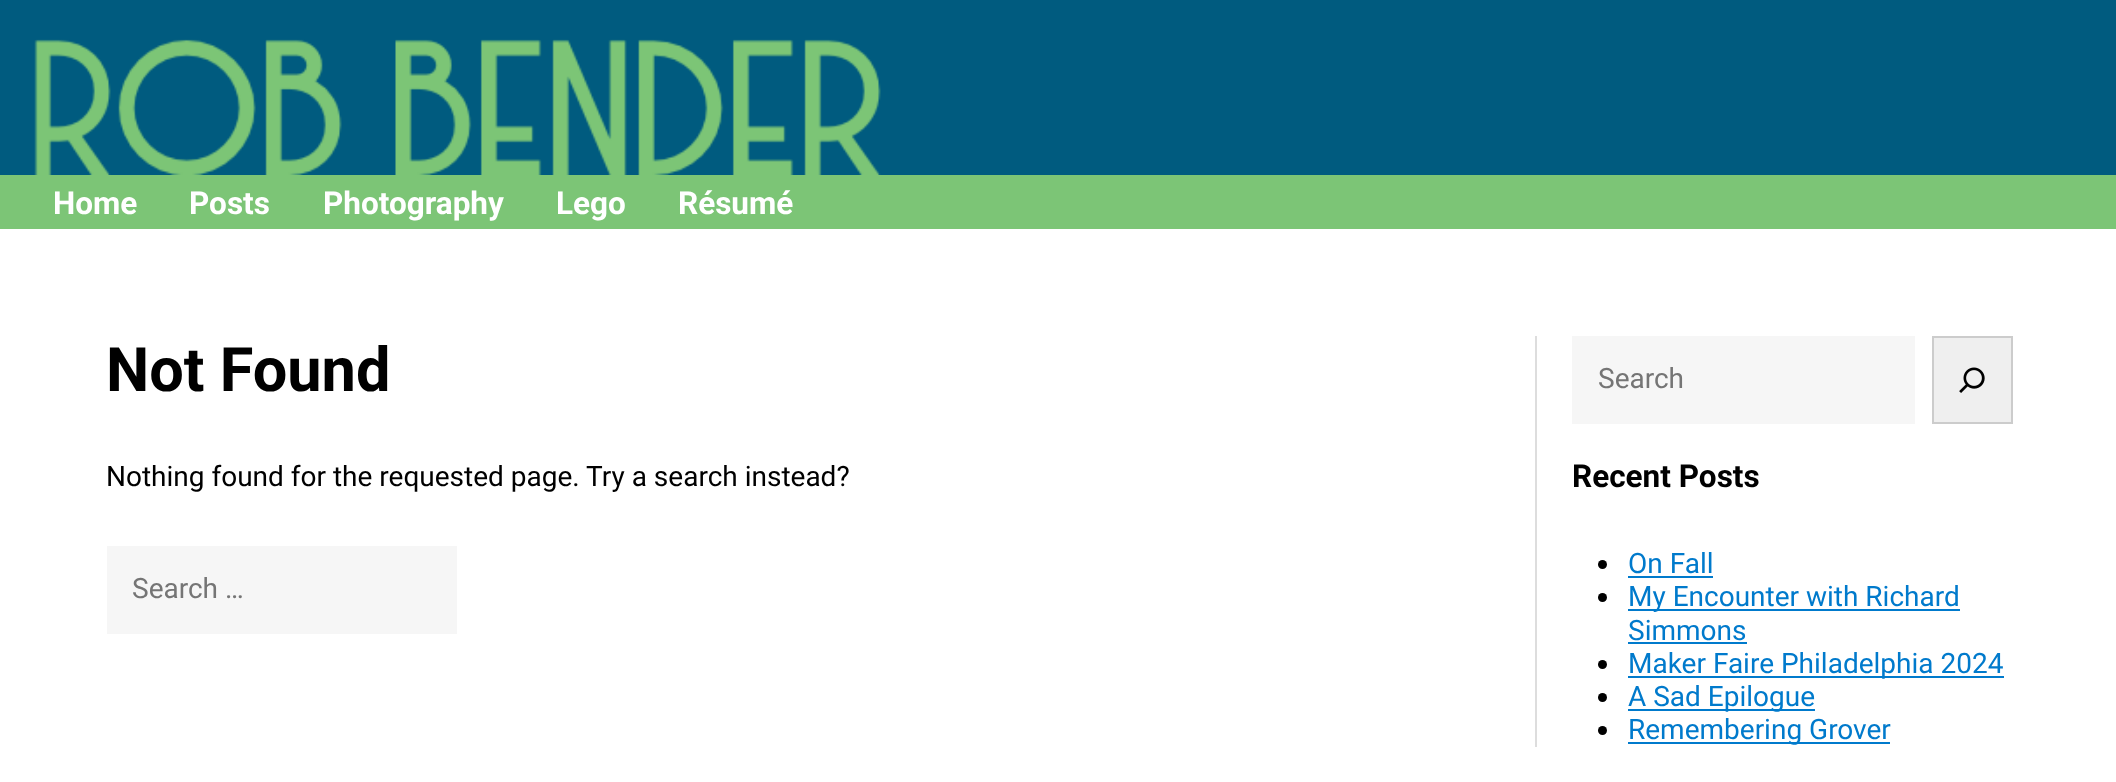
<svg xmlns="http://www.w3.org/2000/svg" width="2116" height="782">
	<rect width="100%" height="100%" fill="#FFFFFF" />
	<rect x="0" y="0" width="2116" height="175" fill="#005B7F" />
	<image x="34" y="39" width="847" height="136" href="assets/img1.png" />
	<rect x="0" y="175" width="2116" height="54" fill="#7CC576" />
	<g font-family="Roboto" font-size="31.5" font-weight="700" fill="#FFFFFF">
		<text x="53" y="214">Home</text>
		<text x="189" y="214">Posts</text>
		<text x="323" y="214">Photography</text>
		<text x="556" y="214">Lego</text>
		<text x="678" y="214">Résumé</text>
	</g>
	<text x="106" y="391" font-family="Roboto" font-size="61.25" font-weight="700" fill="#000000">Not Found</text>
	<text x="106" y="486" font-family="Roboto" font-size="28" fill="#000000">Nothing found for the requested page. Try a search instead?</text>
	<rect x="107" y="546" width="350" height="88" fill="#F6F6F6" />
	<text x="132" y="598" font-family="Roboto" font-size="28" fill="#757575">Search …</text>
	<rect x="1535" y="336" width="2" height="411" fill="#DDDDDD" />
	<rect x="1572" y="336" width="343" height="88" fill="#F6F6F6" />
	<text x="1598" y="388" font-family="Roboto" font-size="28" fill="#757575">Search</text>
	<rect x="1933" y="337" width="79" height="86" fill="#EFEFEF" stroke="#CCCCCC" stroke-width="2" />
	<image x="1959" y="367" width="26" height="26" href="assets/img2.png" />
	<text x="1572" y="487" font-family="Roboto" font-size="31.5" font-weight="700" fill="#000000">Recent Posts</text>
	<circle cx="1602.5" cy="564.5" r="4.5" fill="#000000" />
	<text x="1628" y="573" font-family="Roboto" font-size="28" fill="#007ACC">On Fall</text>
	<rect x="1628" y="576" width="85" height="2" fill="#007ACC" />
	<circle cx="1602.5" cy="597.5" r="4.5" fill="#000000" />
	<rect x="1628" y="609" width="332" height="2" fill="#007ACC" />
	<g font-family="Roboto" font-size="28" fill="#007ACC">
		<text x="1628" y="606">My Encounter with Richard</text>
		<text x="1628" y="640">Simmons</text>
	</g>
	<rect x="1628" y="642" width="119" height="2" fill="#007ACC" />
	<circle cx="1602.5" cy="664.5" r="4.5" fill="#000000" />
	<rect x="1628" y="676" width="376" height="2" fill="#007ACC" />
	<text x="1628" y="673" font-family="Roboto" font-size="28" fill="#007ACC">Maker Faire Philadelphia 2024</text>
	<circle cx="1602.5" cy="697.5" r="4.5" fill="#000000" />
	<rect x="1628" y="709" width="187" height="2" fill="#007ACC" />
	<text x="1628" y="706" font-family="Roboto" font-size="28" fill="#007ACC">A Sad Epilogue</text>
	<circle cx="1602.5" cy="730.5" r="4.5" fill="#000000" />
	<rect x="1628" y="742" width="262" height="2" fill="#007ACC" />
	<text x="1628" y="739" font-family="Roboto" font-size="28" fill="#007ACC">Remembering Grover</text>
</svg>
